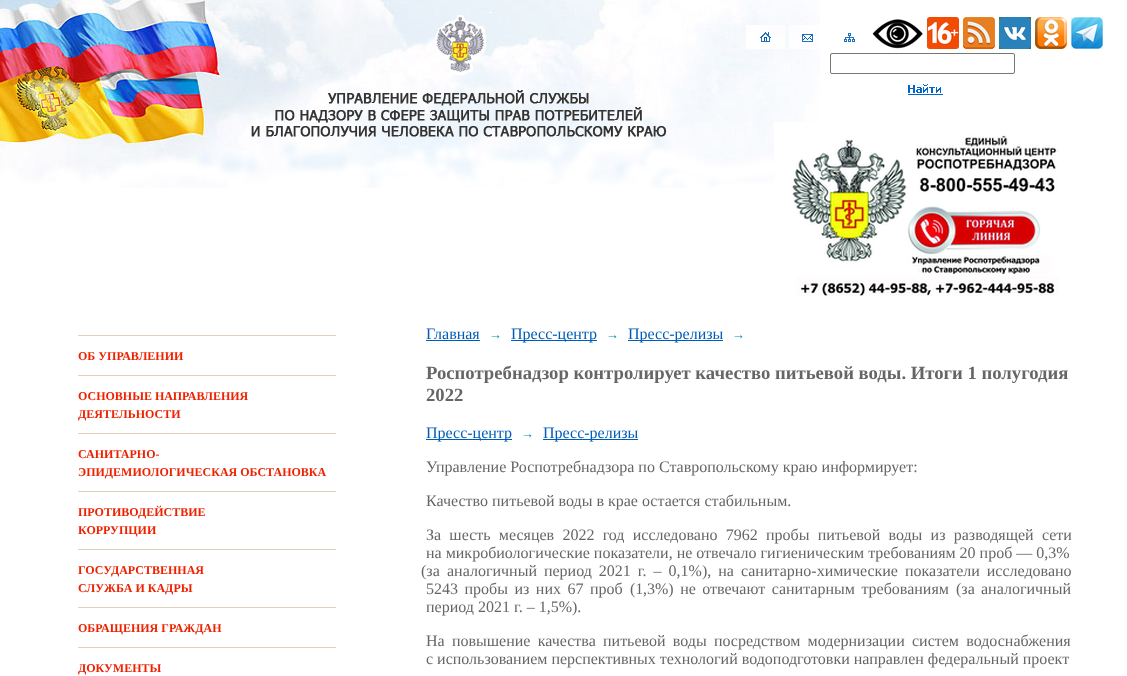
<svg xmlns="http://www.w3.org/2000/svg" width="1127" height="676">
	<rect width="100%" height="100%" fill="#FFFFFF" />
	<image x="0" y="0" width="820" height="188" href="assets/img1.png" />
	<image x="251" y="12" width="416" height="125" href="assets/img2.png" />
	<image x="746" y="25" width="39" height="24" href="assets/img3.png" />
	<image x="789" y="25" width="31" height="24" href="assets/img4.png" />
	<image x="844" y="33" width="11" height="9" href="assets/img5.png" />
	<image x="872" y="19" width="51" height="30" href="assets/img6.png" />
	<image x="927" y="17" width="32" height="32" href="assets/img7.png" />
	<image x="963" y="17" width="32" height="32" href="assets/img8.png" />
	<image x="999" y="17" width="32" height="32" href="assets/img9.png" />
	<image x="1035" y="17" width="32" height="32" href="assets/img10.png" />
	<image x="1071" y="17" width="32" height="32" href="assets/img11.png" />
	<rect x="830.5" y="53.5" width="184" height="20" rx="1.5" fill="none" stroke="#767676" />
	<image x="908" y="84" width="35" height="11" href="assets/img12.png" />
	<image x="774" y="122" width="285" height="175" href="assets/img13.png" />
	<rect x="78" y="335" width="258" height="1" fill="#E2D1BA" />
	<text x="78" y="360" font-family="Liberation Serif" font-size="12" font-weight="700" fill="#EE2200">ОБ УПРАВЛЕНИИ</text>
	<rect x="78" y="375" width="258" height="1" fill="#E2D1BA" />
	<g font-family="Liberation Serif" font-size="12" font-weight="700" fill="#EE2200">
		<text x="78" y="400">ОСНОВНЫЕ НАПРАВЛЕНИЯ</text>
		<text x="78" y="418">ДЕЯТЕЛЬНОСТИ</text>
	</g>
	<rect x="78" y="433" width="258" height="1" fill="#E2D1BA" />
	<g font-family="Liberation Serif" font-size="12" font-weight="700" fill="#EE2200">
		<text x="78" y="458">САНИТАРНО-</text>
		<text x="78" y="476">ЭПИДЕМИОЛОГИЧЕСКАЯ ОБСТАНОВКА</text>
	</g>
	<rect x="78" y="491" width="258" height="1" fill="#E2D1BA" />
	<g font-family="Liberation Serif" font-size="12" font-weight="700" fill="#EE2200">
		<text x="78" y="516">ПРОТИВОДЕЙСТВИЕ</text>
		<text x="78" y="534">КОРРУПЦИИ</text>
	</g>
	<rect x="78" y="549" width="258" height="1" fill="#E2D1BA" />
	<g font-family="Liberation Serif" font-size="12" font-weight="700" fill="#EE2200">
		<text x="78" y="574">ГОСУДАРСТВЕННАЯ</text>
		<text x="78" y="592">СЛУЖБА И КАДРЫ</text>
	</g>
	<rect x="78" y="607" width="258" height="1" fill="#E2D1BA" />
	<text x="78" y="632" font-family="Liberation Serif" font-size="12" font-weight="700" fill="#EE2200">ОБРАЩЕНИЯ ГРАЖДАН</text>
	<rect x="78" y="647" width="258" height="1" fill="#E2D1BA" />
	<text x="78" y="672" font-family="Liberation Serif" font-size="12" font-weight="700" fill="#EE2200">ДОКУМЕНТЫ</text>
	<text x="426" y="339" font-family="Liberation Serif" font-size="16" fill="#005DB7">Главная</text>
	<rect x="426" y="340" width="54" height="1" fill="#005DB7" />
	<text x="489" y="339" font-family="Liberation Serif" font-size="13" fill="#0096AA">→</text>
	<rect x="511" y="340" width="86" height="1" fill="#005DB7" />
	<text x="511" y="339" font-family="Liberation Serif" font-size="16" fill="#005DB7">Пресс-центр</text>
	<text x="606" y="339" font-family="Liberation Serif" font-size="13" fill="#0096AA">→</text>
	<rect x="628" y="340" width="95" height="1" fill="#005DB7" />
	<text x="628" y="339" font-family="Liberation Serif" font-size="16" fill="#005DB7">Пресс-релизы</text>
	<text x="732" y="339" font-family="Liberation Serif" font-size="13" fill="#0096AA">→</text>
	<g font-family="Liberation Serif" font-size="18.7" font-weight="700" fill="#666666">
		<text x="426" y="379">Роспотребнадзор контролирует качество питьевой воды. Итоги 1 полугодия</text>
		<text x="426" y="401">2022</text>
	</g>
	<rect x="426" y="439" width="86" height="1" fill="#005DB7" />
	<text x="426" y="438" font-family="Liberation Serif" font-size="16" fill="#005DB7">Пресс-центр</text>
	<text x="521" y="438" font-family="Liberation Serif" font-size="13" fill="#0096AA">→</text>
	<rect x="543" y="439" width="95" height="1" fill="#005DB7" />
	<text x="543" y="438" font-family="Liberation Serif" font-size="16" fill="#005DB7">Пресс-релизы</text>
	<g font-family="Liberation Serif" font-size="16" fill="#666666">
		<text x="426" y="472">Управление Роспотребнадзора по Ставропольскому краю информирует:</text>
		<text x="426" y="506">Качество питьевой воды в крае остается стабильным.</text>
		<text x="426" y="540" word-spacing="4.25">За шесть месяцев 2022 год исследовано 7962 пробы питьевой воды из разводящей сети</text>
		<text x="426" y="558">на микробиологические показатели, не отвечало гигиеническим требованиям 20 проб — 0,3%</text>
		<text x="421" y="576">(за</text>
		<text x="447" y="576" word-spacing="3">аналогичный период 2021 г. – 0,1%), на санитарно-химические показатели исследовано</text>
		<text x="426" y="594" word-spacing="2.5">5243 пробы из них 67 проб</text>
		<text x="630" y="594">(1</text>
		<text x="643" y="594" word-spacing="2.5">,3%) не отвечают санитарным требованиям</text>
		<text x="956" y="594">(за</text>
		<text x="981" y="594">аналогичный</text>
		<text x="426" y="612">период 2021 г. – 1,5%).</text>
		<text x="426" y="646" word-spacing="3.25">На повышение качества питьевой воды посредством модернизации систем водоснабжения</text>
		<text x="426" y="664">с использованием перспективных технологий водоподготовки направлен федеральный проект</text>
	</g>
</svg>
